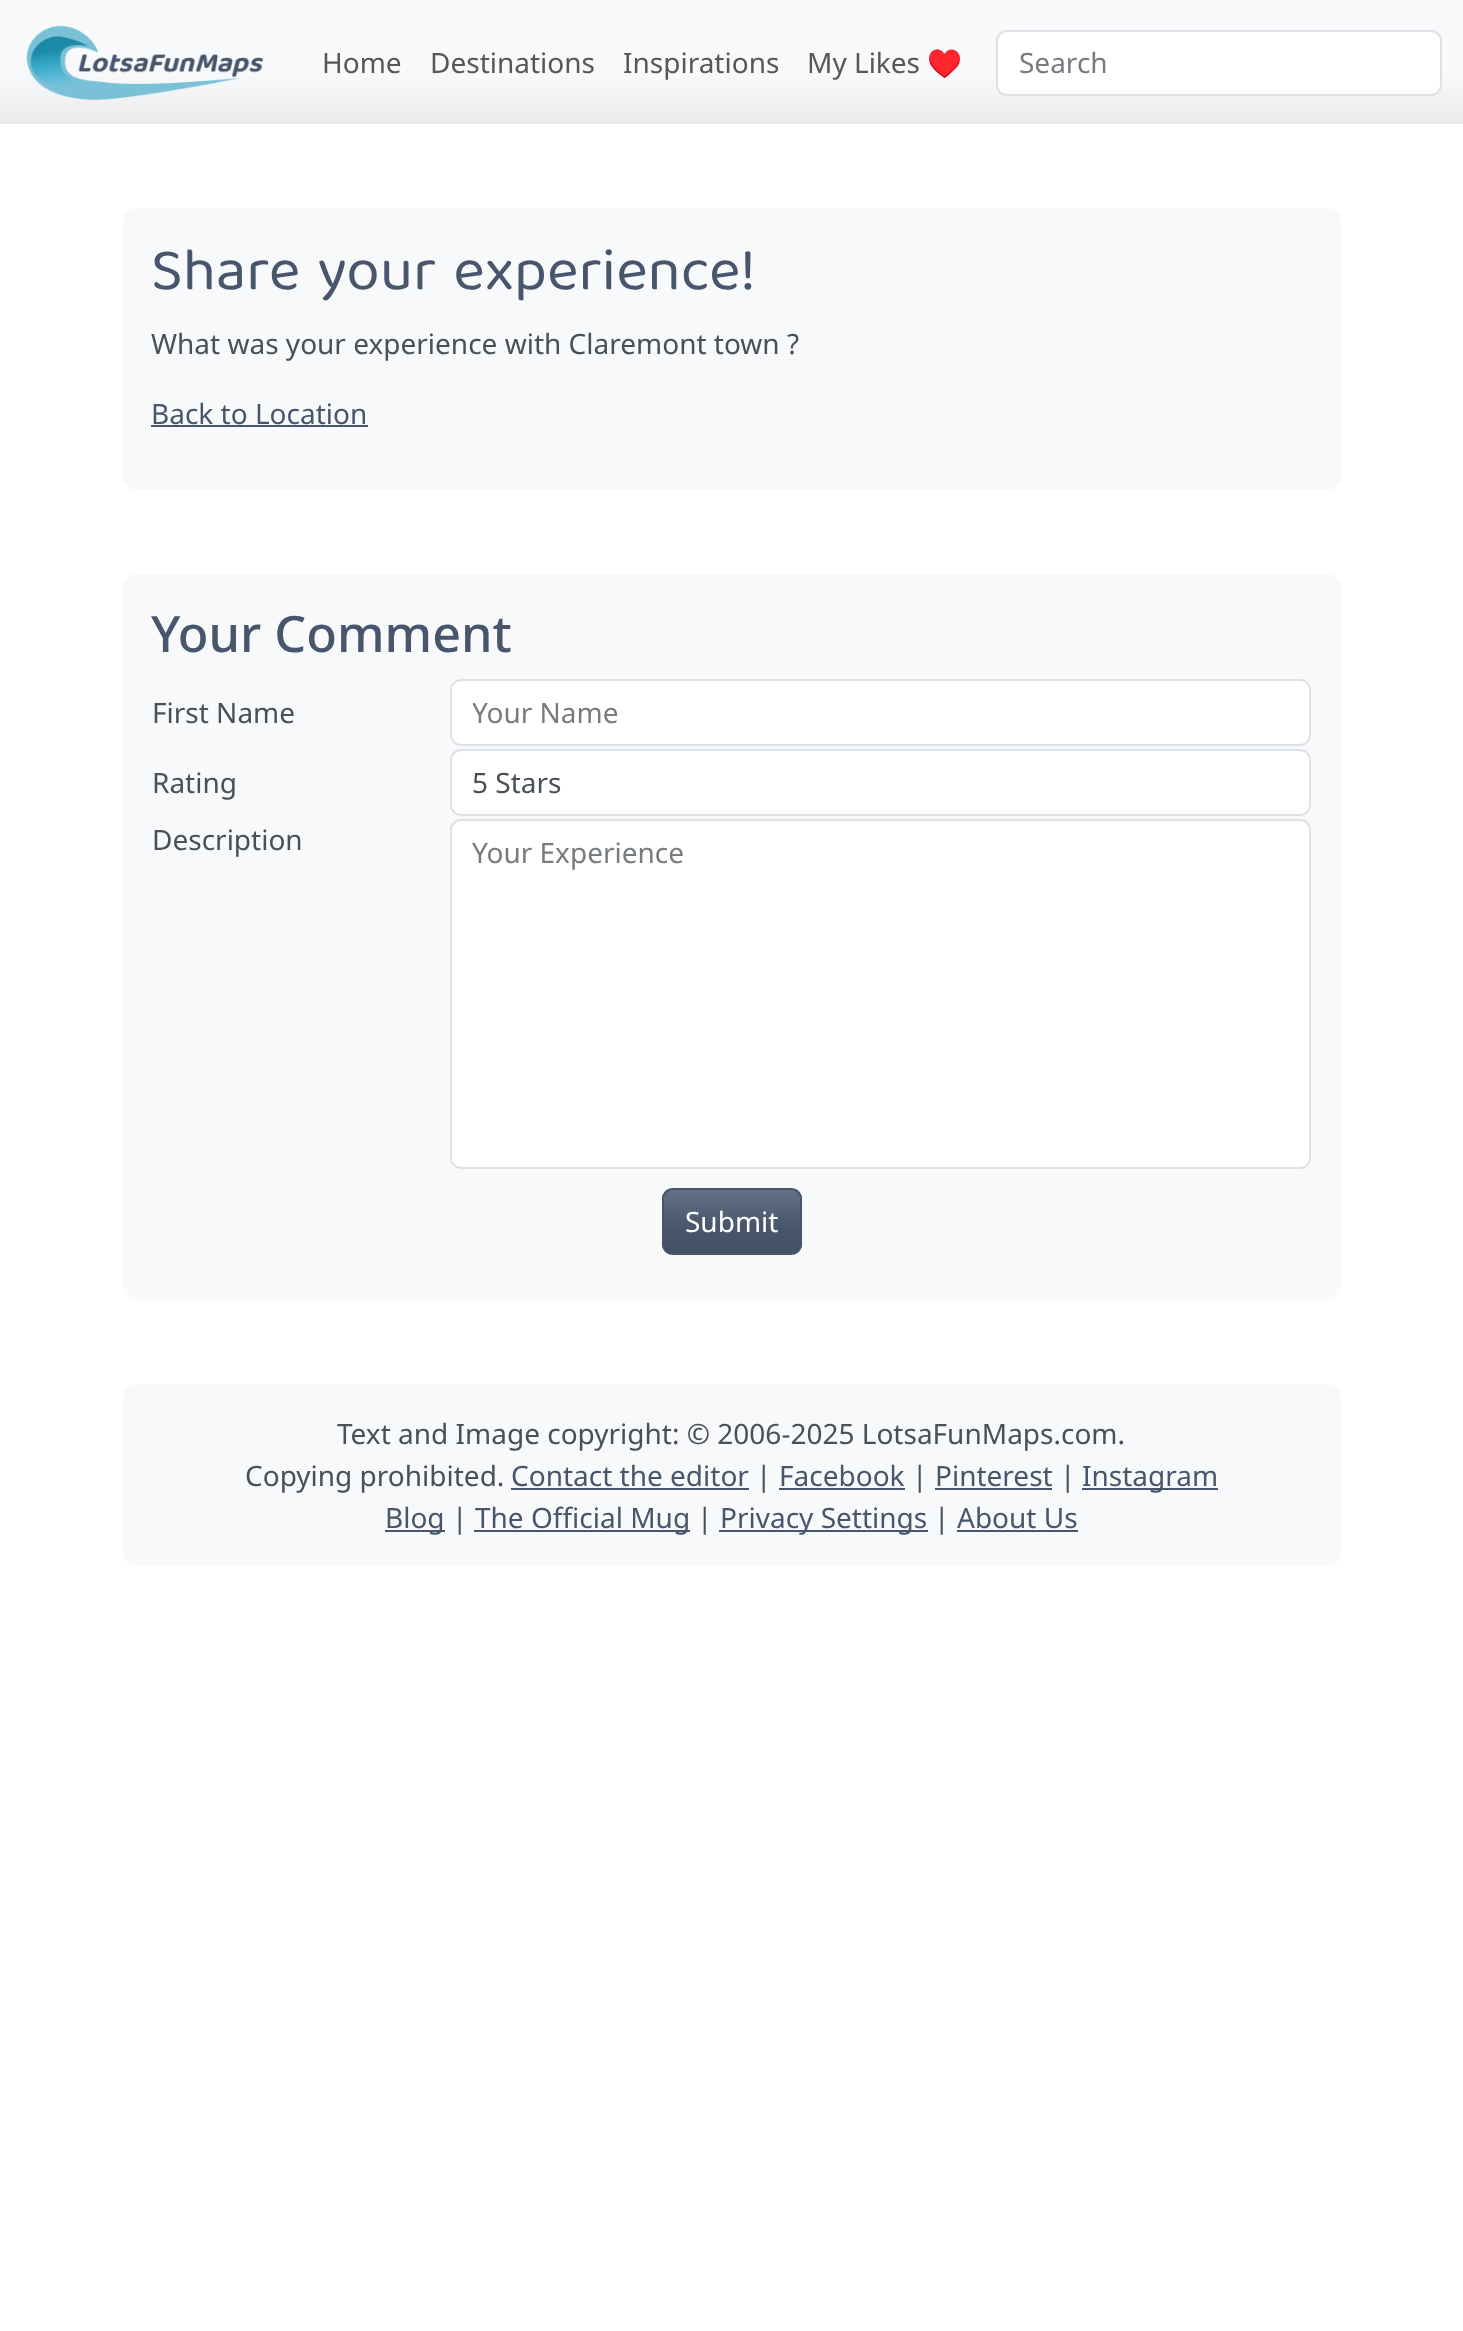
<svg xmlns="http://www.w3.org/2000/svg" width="1463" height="2331">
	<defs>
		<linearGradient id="g1" gradientUnits="userSpaceOnUse" x1="732" y1="0" x2="732" y2="124"><stop offset="0" stop-color="#F9FAFB" /><stop offset="0.6" stop-color="#F8F9FA" /><stop offset="1" stop-color="#E9EAEB" /></linearGradient>
		<clipPath id="clip1"><rect x="473" y="693" width="815" height="39" /></clipPath>
		<clipPath id="clip2"><rect x="662" y="1188" width="140" height="67" rx="11" /></clipPath>
		<linearGradient id="g2" gradientUnits="userSpaceOnUse" x1="732" y1="1190" x2="732" y2="1253"><stop offset="0" stop-color="#647184" /><stop offset="0.6" stop-color="#47566C" /><stop offset="1" stop-color="#435166" /></linearGradient>
	</defs>
	<rect width="100%" height="100%" fill="#FFFFFF" />
	<rect x="0" y="0" width="1463" height="124" fill="url(#g1)" />
	<image x="26" y="25" width="238" height="75" href="assets/img1.png" />
	<g font-family="Noto Sans" font-size="28" fill="#575758">
		<text x="322" y="73">Home</text>
		<text x="430" y="73">Destinations</text>
		<text x="623" y="73">Inspirations</text>
		<text x="807" y="73">My Likes</text>
	</g>
	<text x="927" y="73" font-family="Noto Color Emoji" font-size="28" fill="#575758">♥️</text>
	<rect x="997" y="31" width="444" height="64" rx="10" fill="#FFFFFF" stroke="#DEE2E6" stroke-width="2" />
	<text x="1019" y="73" font-family="Noto Sans" font-size="28" fill="#777C81">Search</text>
	<rect x="123" y="208" width="1218" height="282" rx="14" fill="#F8F9FA" />
	<text x="151" y="289" word-spacing="5" font-family="'Baloo 2'" font-size="60.5" fill="#47566C">Share your experience!</text>
	<text x="151" y="354" font-family="Noto Sans" font-size="28" fill="#495057">What was your experience with Claremont town ?</text>
	<text x="151" y="424" font-family="Noto Sans" font-size="28" fill="#47566C">Back to Location</text>
	<rect x="151" y="425" width="217" height="2" fill="#47566C" />
	<rect x="123" y="574" width="1218" height="726" rx="14" fill="#F8F9FA" />
	<text x="151" y="652" font-family="Noto Sans" font-size="50.25" font-weight="500" fill="#47566C">Your Comment</text>
	<text x="152" y="723" font-family="Noto Sans" font-size="28" fill="#495057">First Name</text>
	<rect x="451" y="680" width="859" height="65" rx="10" fill="#FFFFFF" stroke="#DEE2E6" stroke-width="2" />
	<g clip-path="url(#clip1)">
		<text x="472" y="723" font-family="Noto Sans" font-size="28" fill="#777C81">Your Name</text>
	</g>
	<text x="152" y="793" font-family="Noto Sans" font-size="28" fill="#495057">Rating</text>
	<rect x="451" y="750" width="859" height="65" rx="10" fill="#FFFFFF" stroke="#DEE2E6" stroke-width="2" />
	<g font-family="Noto Sans" font-size="28" fill="#495057">
		<text x="472" y="793">5 Stars</text>
		<text x="152" y="850">Description</text>
	</g>
	<rect x="451" y="820" width="859" height="348" rx="10" fill="#FFFFFF" stroke="#DEE2E6" stroke-width="2" />
	<text x="472" y="863" font-family="Noto Sans" font-size="28" fill="#777C81">Your Experience</text>
	<g clip-path="url(#clip2)">
		<rect x="662" y="1190" width="140" height="63" fill="url(#g2)" />
	</g>
	<rect x="663" y="1189" width="138" height="65" rx="10" fill="none" stroke="#47566C" stroke-width="2" />
	<text x="685" y="1232" font-family="Noto Sans" font-size="28" fill="#FFFFFF">Submit</text>
	<rect x="123" y="1384" width="1218" height="182" rx="14" fill="#F8F9FA" />
	<g font-family="Noto Sans" font-size="28" fill="#495057">
		<text x="337" y="1444">Text and Image copyright: © 2006-2025 LotsaFunMaps.com.</text>
		<text x="245" y="1486">Copying prohibited.</text>
	</g>
	<text x="511" y="1486" font-family="Noto Sans" font-size="28" fill="#47566C">Contact the editor</text>
	<rect x="511" y="1488" width="238" height="2" fill="#47566C" />
	<text x="756" y="1486" font-family="Noto Sans" font-size="28" fill="#495057">|</text>
	<text x="779" y="1486" font-family="Noto Sans" font-size="28" fill="#47566C">Facebook</text>
	<rect x="779" y="1488" width="126" height="2" fill="#47566C" />
	<text x="912" y="1486" font-family="Noto Sans" font-size="28" fill="#495057">|</text>
	<text x="935" y="1486" font-family="Noto Sans" font-size="28" fill="#47566C">Pinterest</text>
	<rect x="935" y="1488" width="117" height="2" fill="#47566C" />
	<text x="1060" y="1486" font-family="Noto Sans" font-size="28" fill="#495057">|</text>
	<rect x="1082" y="1488" width="136" height="2" fill="#47566C" />
	<text x="1082" y="1486" font-family="Noto Sans" font-size="28" fill="#47566C">Instagram</text>
	<rect x="385" y="1530" width="60" height="2" fill="#47566C" />
	<text x="385" y="1528" font-family="Noto Sans" font-size="28" fill="#47566C">Blog</text>
	<text x="452" y="1528" font-family="Noto Sans" font-size="28" fill="#495057">|</text>
	<rect x="474" y="1530" width="216" height="2" fill="#47566C" />
	<text x="475" y="1528" font-family="Noto Sans" font-size="28" fill="#47566C">The Official Mug</text>
	<text x="697" y="1528" font-family="Noto Sans" font-size="28" fill="#495057">|</text>
	<rect x="719" y="1530" width="209" height="2" fill="#47566C" />
	<text x="720" y="1528" font-family="Noto Sans" font-size="28" fill="#47566C">Privacy Settings</text>
	<text x="934" y="1528" font-family="Noto Sans" font-size="28" fill="#495057">|</text>
	<text x="957" y="1528" font-family="Noto Sans" font-size="28" fill="#47566C">About Us</text>
	<rect x="957" y="1530" width="121" height="2" fill="#47566C" />
</svg>
